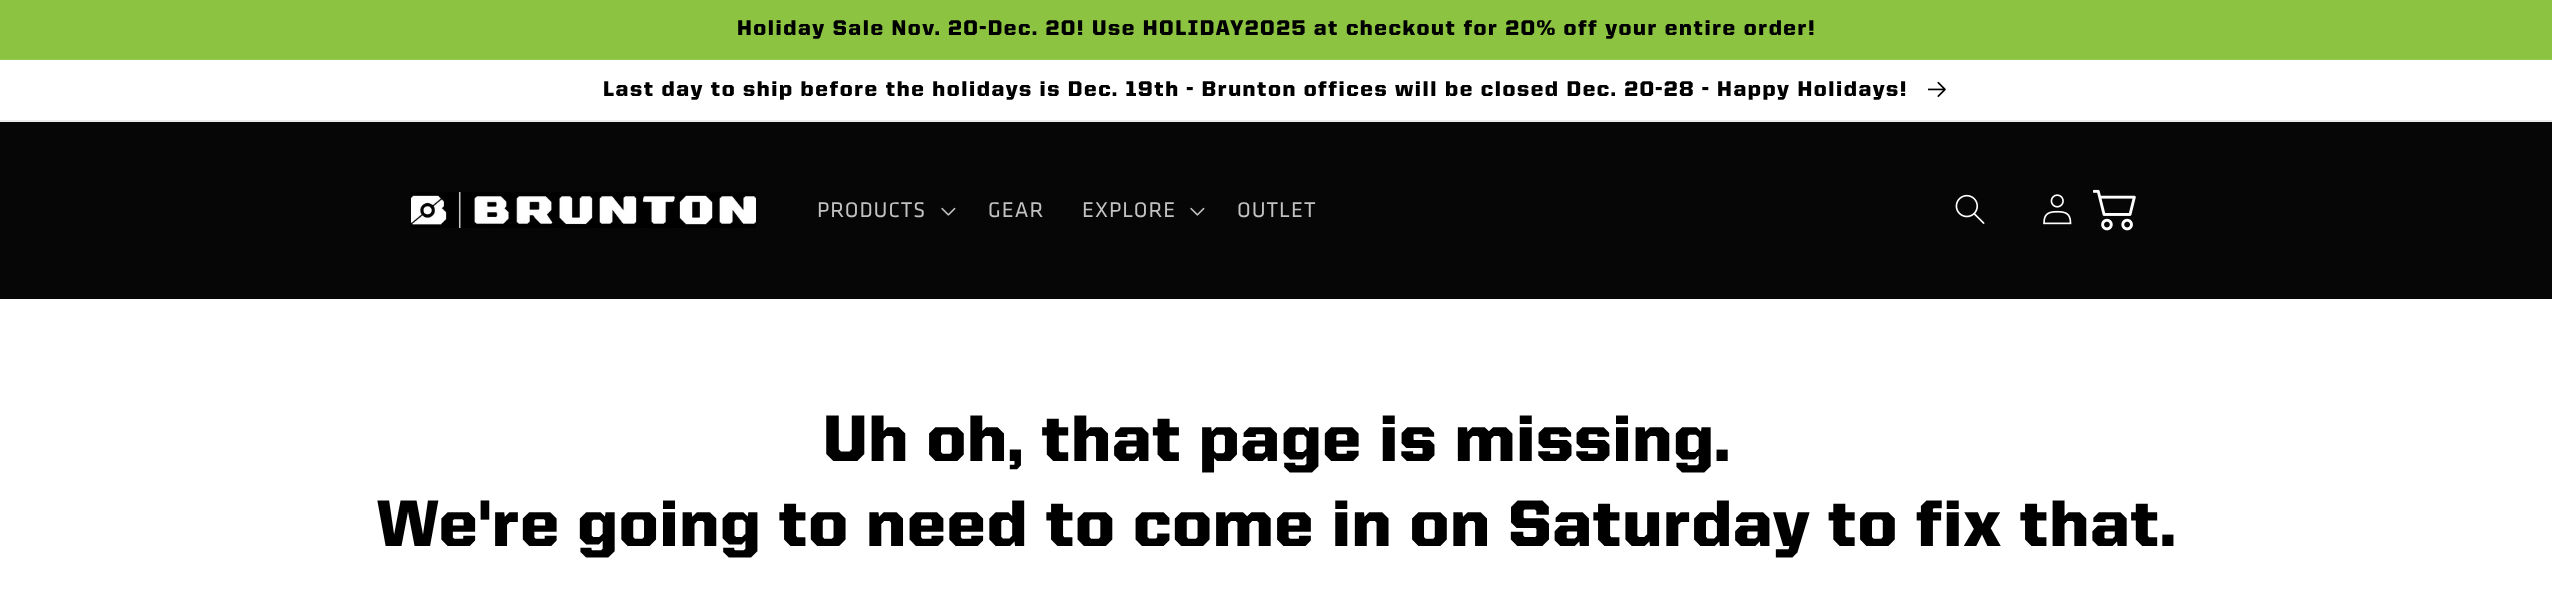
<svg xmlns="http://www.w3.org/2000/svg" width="2552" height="599">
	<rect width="100%" height="100%" fill="#FFFFFF" />
	<rect x="0" y="0" width="2552" height="59" fill="#8CC442" />
	<rect x="0" y="59" width="2552" height="1" fill="#95C951" />
	<text x="737" y="35" font-family="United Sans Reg" font-size="21.45" font-weight="900" letter-spacing="1.58" fill="#000000">Holiday Sale Nov. 20-Dec. 20! Use HOLIDAY2025 at checkout for 20% off your entire order!</text>
	<rect x="0" y="120" width="2552" height="2" fill="#EBEBEB" />
	<text x="603" y="96" font-family="United Sans Reg" font-size="21.45" font-weight="900" letter-spacing="1.58" fill="#000000">Last day to ship before the holidays is Dec. 19th - Brunton offices will be closed Dec. 20-28 - Happy Holidays!</text>
	<image x="1928" y="81" width="18" height="16" href="assets/img1.png" />
	<rect x="0" y="122" width="2552" height="177" fill="#060606" />
	<image x="411" y="192" width="345" height="36" href="assets/img2.png" />
	<text x="817" y="217" font-family="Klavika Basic" font-size="22" letter-spacing="1" fill="#C1C1C1">PRODUCTS</text>
	<image x="941" y="207" width="15" height="9" href="assets/img3.png" />
	<g font-family="Klavika Basic" font-size="22" letter-spacing="1" fill="#C1C1C1">
		<text x="988" y="217">GEAR</text>
		<text x="1082" y="217">EXPLORE</text>
	</g>
	<image x="1190" y="207" width="15" height="9" href="assets/img3.png" />
	<text x="1237" y="217" font-family="Klavika Basic" font-size="22" letter-spacing="1" fill="#C1C1C1">OUTLET</text>
	<image x="1955" y="194" width="30" height="30" href="assets/img4.png" />
	<image x="2043" y="194" width="29" height="31" href="assets/img5.png" />
	<image x="2093" y="189" width="43" height="42" href="assets/img6.png" />
	<g font-family="United Sans Reg" font-size="66" font-weight="900" letter-spacing="1" fill="#000000">
		<text x="823" y="461">Uh oh, that page is missing.</text>
		<text x="377" y="546">We're going to need to come in on Saturday to fix that.</text>
	</g>
</svg>
